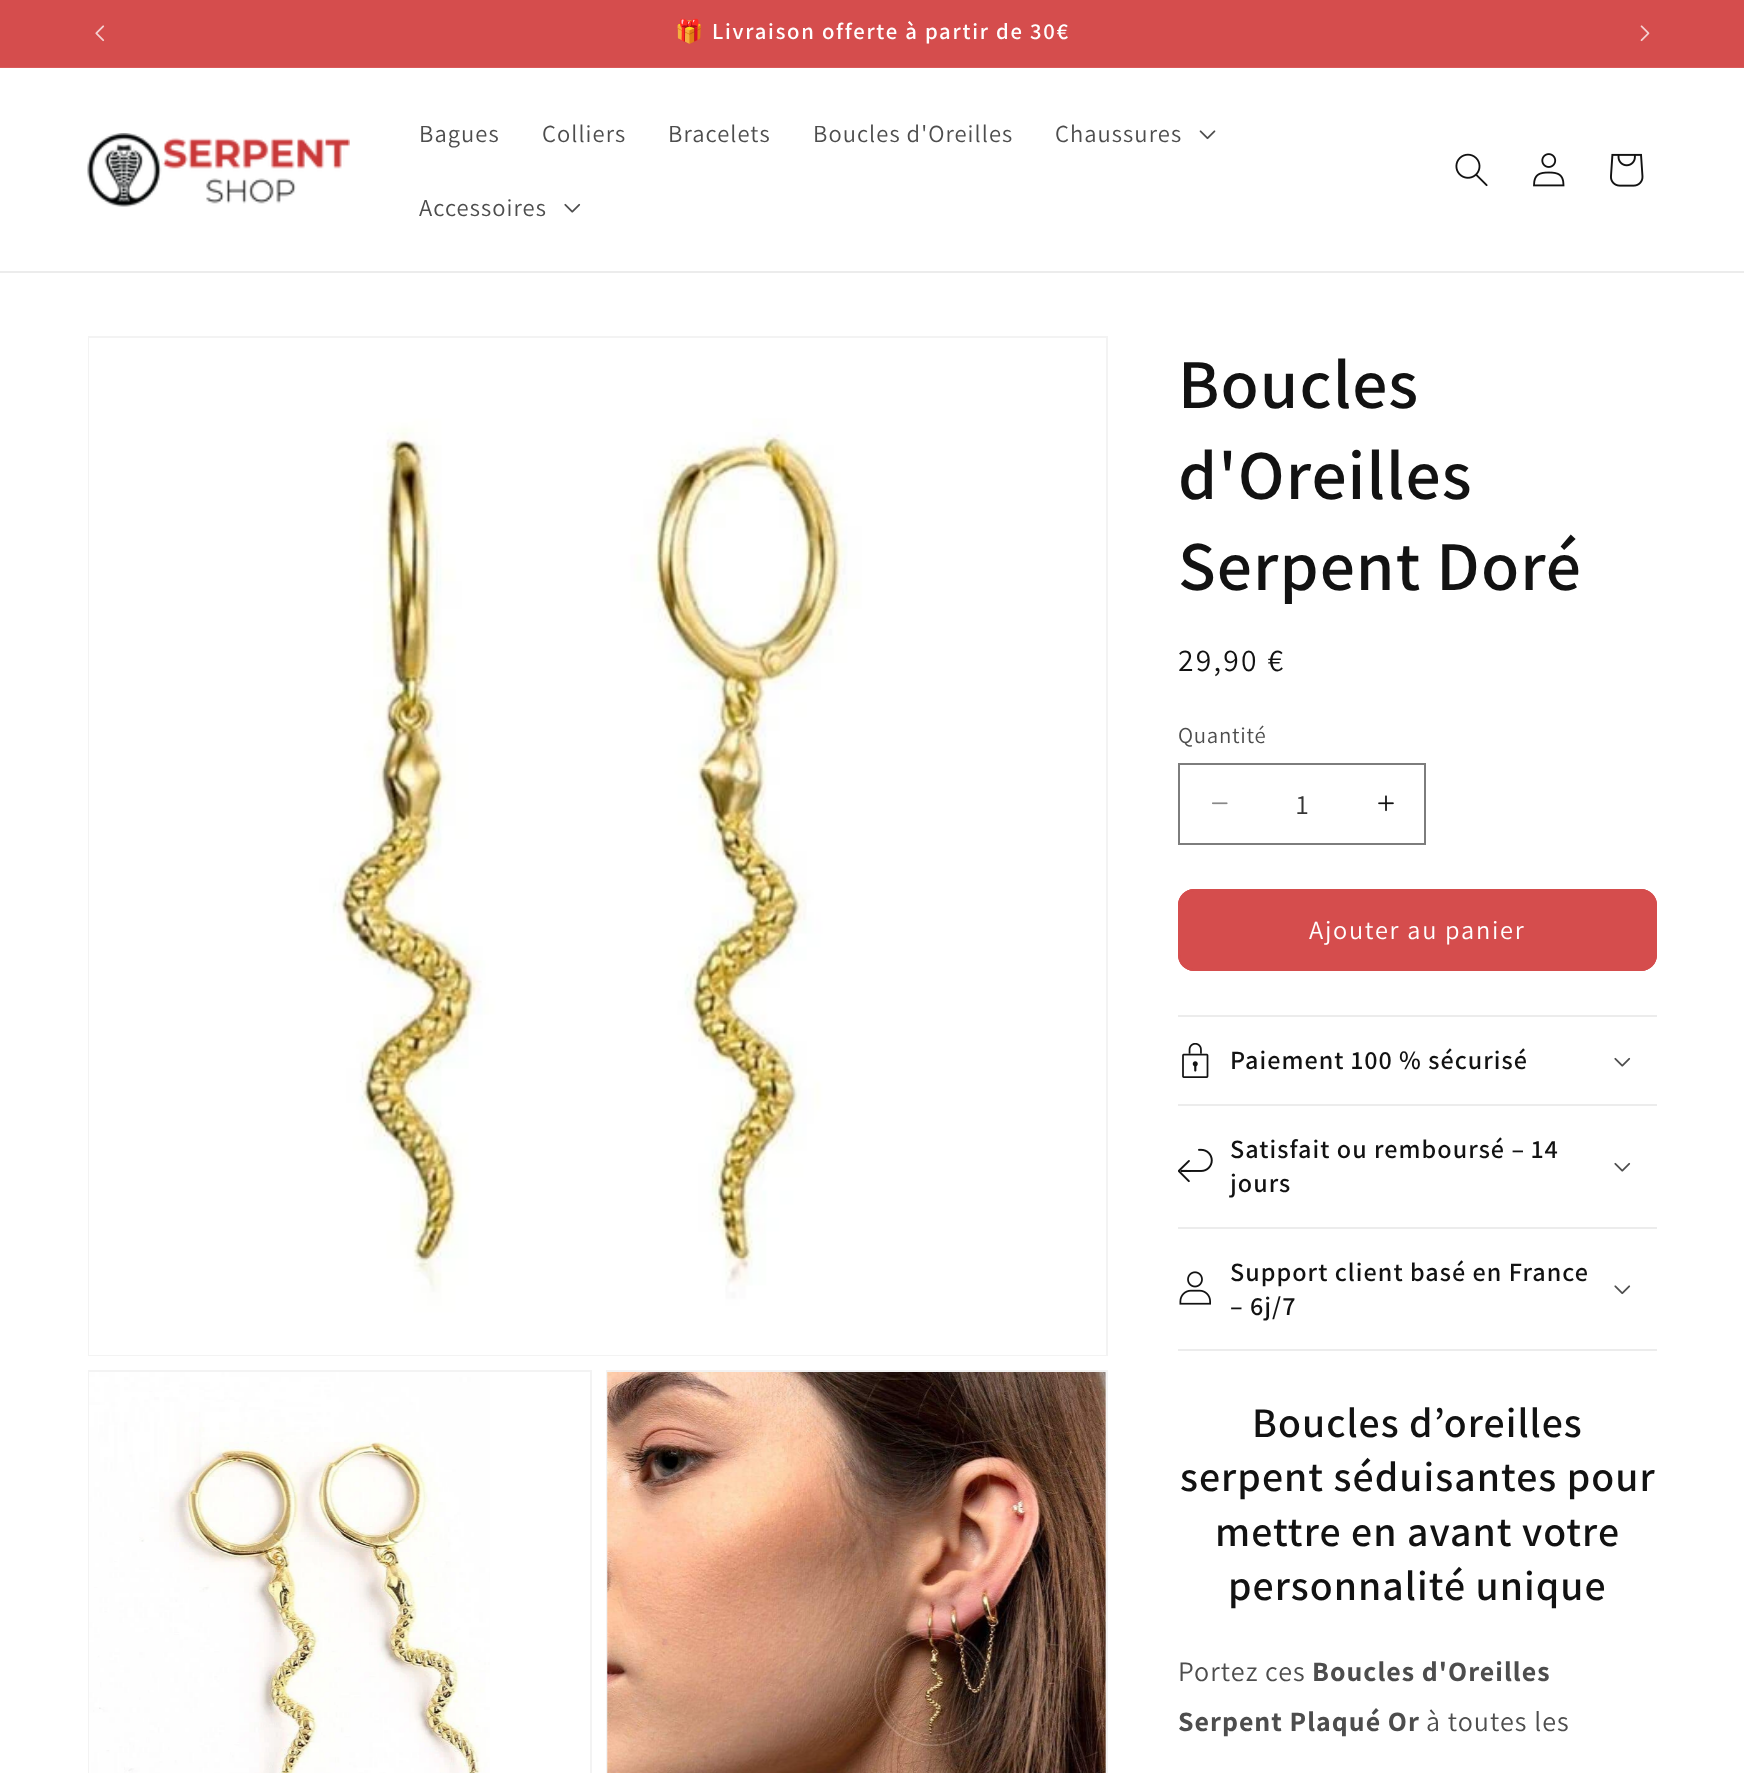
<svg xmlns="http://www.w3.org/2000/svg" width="1744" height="1773">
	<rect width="100%" height="100%" fill="#FFFFFF" />
	<rect x="0" y="0" width="1744" height="67" fill="#D54D4D" />
	<rect x="0" y="67" width="1744" height="1" fill="#D85B5B" />
	<image x="95" y="25" width="10" height="17" href="assets/img1.png" />
	<text x="675" y="39" font-family="Noto Color Emoji" font-size="22.75" font-weight="700" letter-spacing="1.75" fill="#FFFFFF">🎁</text>
	<text x="712" y="39" font-family="Assistant" font-size="22.75" font-weight="600" letter-spacing="1.75" fill="#FFFFFF">Livraison offerte à partir de 30€</text>
	<image x="1640" y="25" width="10" height="17" href="assets/img2.png" />
	<rect x="0" y="271" width="1744" height="2" fill="#ECECEC" />
	<image x="87" y="133" width="263" height="74" href="assets/img3.png" />
	<g font-family="Assistant" font-size="24.5" letter-spacing="1.05" fill="#4D4D4D">
		<text x="419" y="142">Bagues</text>
		<text x="542" y="142">Colliers</text>
		<text x="668" y="142">Bracelets</text>
		<text x="813" y="142">Boucles d'Oreilles</text>
		<text x="1055" y="142">Chaussures</text>
	</g>
	<image x="1199" y="130" width="17" height="10" href="assets/img4.png" />
	<text x="419" y="216" font-family="Assistant" font-size="24.5" letter-spacing="1.05" fill="#4D4D4D">Accessoires</text>
	<image x="564" y="203" width="17" height="10" href="assets/img5.png" />
	<image x="1455" y="153" width="33" height="34" href="assets/img6.png" />
	<image x="1533" y="153" width="32" height="34" href="assets/img7.png" />
	<image x="1610" y="153" width="34" height="34" href="assets/img8.png" />
	<rect x="89" y="337" width="1018" height="1018" fill="none" stroke="#F3F3F3" stroke-width="2" />
	<image x="89" y="338" width="1017" height="1017" href="assets/img9.png" />
	<rect x="89" y="1371" width="502" height="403" fill="none" stroke="#F3F3F3" stroke-width="2" />
	<image x="89" y="1372" width="401" height="401" href="assets/img10.png" />
	<rect x="607" y="1371" width="500" height="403" fill="none" stroke="#F3F3F3" stroke-width="2" />
	<image x="607" y="1372" width="499" height="401" href="assets/img11.png" />
	<g font-family="Assistant" font-size="70" font-weight="600" letter-spacing="1.05" fill="#121212">
		<text x="1178" y="408">Boucles</text>
		<text x="1178" y="499">d'Oreilles</text>
		<text x="1178" y="590">Serpent Doré</text>
	</g>
	<text x="1178" y="671" font-family="Assistant" font-size="31.5" letter-spacing="2.25" fill="#121212">29,90 €</text>
	<text x="1178" y="743" font-family="Assistant" font-size="22.75" letter-spacing="0.75" fill="#4D4D4D">Quantité</text>
	<image x="1212" y="802" width="16" height="3" href="assets/img12.png" />
	<image x="1378" y="795" width="16" height="17" href="assets/img13.png" />
	<rect x="1179" y="764" width="246" height="80" fill="none" stroke="#7D7D7D" stroke-width="2" />
	<text x="1296" y="814" font-family="Assistant" font-size="28" fill="#363636">1</text>
	<rect x="1178" y="889" width="479" height="82" rx="16" fill="#D54D4D" />
	<rect x="1179" y="890" width="477" height="80" rx="15" fill="none" stroke="#D54D4D" stroke-width="2" />
	<text x="1309" y="939" font-family="Assistant" font-size="26.25" letter-spacing="1.75" fill="#FFFFFF">Ajouter au panier</text>
	<rect x="1178" y="1015" width="479" height="2" fill="#ECECEC" />
	<rect x="1178" y="1104" width="479" height="2" fill="#ECECEC" />
	<image x="1182" y="1043" width="27" height="35" href="assets/img14.png" />
	<text x="1230" y="1069" font-family="Assistant" font-size="26.25" font-weight="600" letter-spacing="1.05" fill="#121212">Paiement 100 % sécurisé</text>
	<image x="1614" y="1057" width="17" height="10" href="assets/img5.png" />
	<rect x="1178" y="1227" width="479" height="2" fill="#ECECEC" />
	<image x="1178" y="1148" width="35" height="35" href="assets/img15.png" />
	<g font-family="Assistant" font-size="26.25" font-weight="600" letter-spacing="1.05" fill="#121212">
		<text x="1230" y="1158">Satisfait ou remboursé – 14</text>
		<text x="1230" y="1192">jours</text>
	</g>
	<image x="1614" y="1162" width="17" height="10" href="assets/img5.png" />
	<rect x="1178" y="1349" width="479" height="2" fill="#ECECEC" />
	<image x="1179" y="1271" width="32" height="34" href="assets/img16.png" />
	<g font-family="Assistant" font-size="26.25" font-weight="600" letter-spacing="1.05" fill="#121212">
		<text x="1230" y="1281">Support client basé en France</text>
		<text x="1230" y="1315">– 6j/7</text>
	</g>
	<image x="1614" y="1285" width="17" height="10" href="assets/img17.png" />
	<g font-family="Assistant" font-size="42" font-weight="600" letter-spacing="1.05" fill="#121212">
		<text x="1252" y="1437">Boucles d’oreilles</text>
		<text x="1180" y="1491">serpent séduisantes pour</text>
		<text x="1215" y="1546">mettre en avant votre</text>
		<text x="1228" y="1600">personnalité unique</text>
	</g>
	<text x="1178" y="1681" font-family="Assistant" font-size="28" letter-spacing="1.05" fill="#4D4D4D">Portez ces</text>
	<g font-family="Assistant" font-size="28" font-weight="700" letter-spacing="1.05" fill="#4D4D4D">
		<text x="1312" y="1681">Boucles d'Oreilles</text>
		<text x="1178" y="1731">Serpent Plaqué Or</text>
	</g>
	<text x="1426" y="1731" font-family="Assistant" font-size="28" letter-spacing="1.05" fill="#4D4D4D">à toutes les</text>
</svg>
